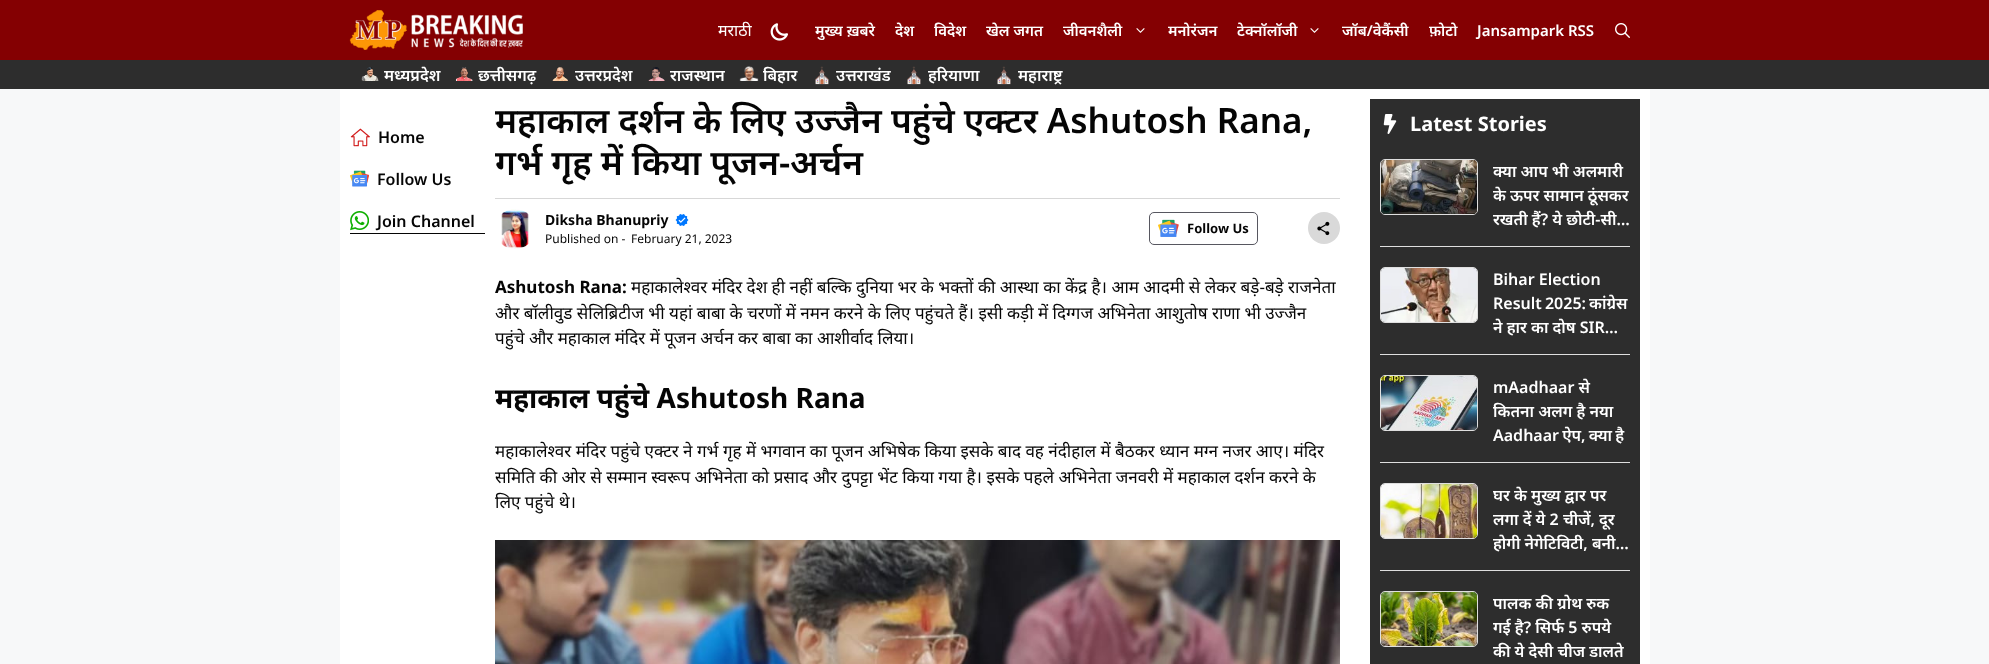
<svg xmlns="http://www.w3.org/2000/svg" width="1989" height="664">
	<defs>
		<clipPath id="clip1"><rect x="1493" y="159" width="137" height="72" /></clipPath>
		<clipPath id="clip2"><rect x="1493" y="267" width="137" height="72" /></clipPath>
		<clipPath id="clip3"><rect x="1493" y="483" width="137" height="72" /></clipPath>
		<clipPath id="clip4"><rect x="1493" y="591" width="137" height="72" /></clipPath>
	</defs>
	<rect width="100%" height="100%" fill="#F7F8F9" />
	<rect x="0" y="0" width="1989" height="60" fill="#840002" />
	<image x="349" y="10" width="174" height="40" href="assets/img1.png" />
	<text x="718" y="36" font-family="Noto Sans" font-size="16" fill="#FFFFFF">मराठी</text>
	<image x="770" y="23" width="18" height="18" href="assets/img2.png" />
	<g font-family="Noto Sans" font-size="15" font-weight="600" fill="#FFFFFF">
		<text x="815" y="36">मुख्य ख़बरे</text>
		<text x="895" y="36">देश</text>
		<text x="934" y="36">विदेश</text>
		<text x="986" y="36">खेल जगत</text>
		<text x="1063" y="36">जीवनशैली</text>
	</g>
	<image x="1136" y="28" width="9" height="5" href="assets/img3.png" />
	<g font-family="Noto Sans" font-size="15" font-weight="600" fill="#FFFFFF">
		<text x="1168" y="36">मनोरंजन</text>
		<text x="1237" y="36">टेक्नॉलॉजी</text>
	</g>
	<image x="1310" y="28" width="9" height="5" href="assets/img3.png" />
	<g font-family="Noto Sans" font-size="15" font-weight="600" fill="#FFFFFF">
		<text x="1342" y="36">जॉब/वेकैंसी</text>
		<text x="1429" y="36">फ़ोटो</text>
		<text x="1477" y="36">Jansampark RSS</text>
	</g>
	<image x="1615" y="23" width="15" height="15" href="assets/img4.png" />
	<rect x="0" y="60" width="1989" height="29" fill="#2D2D2D" />
	<image x="361" y="67" width="18" height="14" href="assets/img5.png" />
	<text x="384" y="81" font-family="Noto Sans" font-size="16" font-weight="600" fill="#FFFFFF">मध्यप्रदेश</text>
	<image x="455" y="67" width="18" height="14" href="assets/img6.png" />
	<text x="478" y="81" font-family="Noto Sans" font-size="16" font-weight="600" fill="#FFFFFF">छत्तीसगढ़</text>
	<image x="552" y="67" width="16" height="14" href="assets/img7.png" />
	<text x="575" y="81" font-family="Noto Sans" font-size="16" font-weight="600" fill="#FFFFFF">उत्तरप्रदेश</text>
	<image x="648" y="67" width="17" height="14" href="assets/img8.png" />
	<text x="670" y="81" font-family="Noto Sans" font-size="16" font-weight="600" fill="#FFFFFF">राजस्थान</text>
	<image x="739" y="66" width="20" height="15" href="assets/img9.png" />
	<text x="763" y="81" font-family="Noto Sans" font-size="16" font-weight="600" fill="#FFFFFF">बिहार</text>
	<text x="812" y="81" font-family="Noto Color Emoji" font-size="16" font-weight="700" fill="#FFFFFF">⛪</text>
	<text x="836" y="81" font-family="Noto Sans" font-size="16" font-weight="600" fill="#FFFFFF">उत्तराखंड</text>
	<text x="904" y="81" font-family="Noto Color Emoji" font-size="16" font-weight="700" fill="#FFFFFF">⛪</text>
	<text x="928" y="81" font-family="Noto Sans" font-size="16" font-weight="600" fill="#FFFFFF">हरियाणा</text>
	<text x="994" y="81" font-family="Noto Color Emoji" font-size="16" font-weight="700" fill="#FFFFFF">⛪</text>
	<text x="1018" y="81" font-family="Noto Sans" font-size="16" font-weight="600" fill="#FFFFFF">महाराष्ट्र</text>
	<rect x="340" y="89" width="1310" height="575" fill="#FFFFFF" />
	<rect x="350" y="233" width="135" height="1" fill="#050505" />
	<image x="350" y="128" width="20" height="19" href="assets/img10.png" />
	<text x="378" y="143" font-family="Noto Sans" font-size="16" font-weight="600" fill="#050505">Home</text>
	<image x="350" y="170" width="19" height="17" href="assets/img11.png" />
	<text x="377" y="185" font-family="Noto Sans" font-size="16" font-weight="600" fill="#050505">Follow Us</text>
	<image x="350" y="211" width="19" height="20" href="assets/img12.png" />
	<text x="377" y="227" font-family="Noto Sans" font-size="16" font-weight="600" fill="#050505">Join Channel</text>
	<g font-family="Noto Sans" font-size="35" font-weight="600" fill="#050505">
		<text x="495" y="133">महाकाल दर्शन के लिए उज्जैन पहुंचे एक्टर Ashutosh Rana,</text>
		<text x="495" y="175">गर्भ गृह में किया पूजन-अर्चन</text>
	</g>
	<rect x="495" y="198" width="845" height="1" fill="#D7D7D7" />
	<image x="501" y="209" width="28" height="40" href="assets/img13.png" />
	<text x="545" y="225" font-family="Noto Sans" font-size="14" font-weight="700" fill="#050505">Diksha Bhanupriy</text>
	<image x="675" y="214" width="14" height="12" href="assets/img14.png" />
	<g font-family="Noto Sans" font-size="12" fill="#050505">
		<text x="545" y="243">Published on -</text>
		<text x="631" y="243">February 21, 2023</text>
	</g>
	<rect x="1149.5" y="212.5" width="108" height="32" rx="4.5" fill="none" stroke="#575760" />
	<image x="1158" y="219" width="21" height="18" href="assets/img15.png" />
	<text x="1187" y="233" font-family="Noto Sans" font-size="13" font-weight="700" fill="#050505">Follow Us</text>
	<circle cx="1324" cy="228" r="16" fill="#D9D9D9" />
	<image x="1317" y="221" width="13" height="15" href="assets/img16.png" />
	<text x="495" y="293" font-family="Noto Sans" font-size="17" font-weight="700" fill="#050505">Ashutosh Rana:</text>
	<g font-family="Noto Sans" font-size="17" fill="#050505">
		<text x="631" y="293">महाकालेश्वर मंदिर देश ही नहीं बल्कि दुनिया भर के भक्तों की आस्था का केंद्र है। आम आदमी से लेकर बड़े-बड़े राजनेता</text>
		<text x="495" y="319">और बॉलीवुड सेलिब्रिटीज भी यहां बाबा के चरणों में नमन करने के लिए पहुंचते हैं। इसी कड़ी में दिग्गज अभिनेता आशुतोष राणा भी उज्जैन</text>
		<text x="495" y="344">पहुंचे और महाकाल मंदिर में पूजन अर्चन कर बाबा का आशीर्वाद लिया।</text>
	</g>
	<text x="495" y="408" font-family="Noto Sans" font-size="28" font-weight="700" fill="#050505">महाकाल पहुंचे Ashutosh Rana</text>
	<g font-family="Noto Sans" font-size="17" fill="#050505">
		<text x="495" y="457">महाकालेश्वर मंदिर पहुंचे एक्टर ने गर्भ गृह में भगवान का पूजन अभिषेक किया इसके बाद वह नंदीहाल में बैठकर ध्यान मग्न नजर आए। मंदिर</text>
		<text x="495" y="483">समिति की ओर से सम्मान स्वरूप अभिनेता को प्रसाद और दुपट्टा भेंट किया गया है। इसके पहले अभिनेता जनवरी में महाकाल दर्शन करने के</text>
		<text x="495" y="508">लिए पहुंचे थे।</text>
	</g>
	<image x="495" y="540" width="845" height="124" href="assets/img17.png" />
	<rect x="1370" y="99" width="270" height="565" fill="#2D2D2D" />
	<image x="1383" y="114" width="14" height="20" href="assets/img18.png" />
	<text x="1410" y="131" font-family="Noto Sans" font-size="20" font-weight="700" fill="#FFFFFF">Latest Stories</text>
	<rect x="1380" y="246" width="250" height="1" fill="#DFDFDF" />
	<rect x="1380.5" y="159.5" width="97" height="55" rx="4.5" fill="none" stroke="#DFDFDF" />
	<image x="1381" y="160" width="96" height="54" href="assets/img19.png" />
	<text x="1493" y="177" font-family="Noto Sans" font-size="16" font-weight="600" fill="#FFFFFF">क्या आप भी अलमारी</text>
	<g clip-path="url(#clip1)">
		<text x="1493" y="201" font-family="Noto Sans" font-size="16" font-weight="600" fill="#FFFFFF">के ऊपर सामान ठूंसकर</text>
	</g>
	<text x="1493" y="225" font-family="Noto Sans" font-size="16" font-weight="600" fill="#FFFFFF">रखती हैं? ये छोटी-सी…</text>
	<rect x="1380" y="354" width="250" height="1" fill="#DFDFDF" />
	<rect x="1380.5" y="267.5" width="97" height="55" rx="4.5" fill="none" stroke="#DFDFDF" />
	<image x="1381" y="268" width="96" height="54" href="assets/img20.png" />
	<text x="1493" y="285" font-family="Noto Sans" font-size="16" font-weight="600" fill="#FFFFFF">Bihar Election</text>
	<g clip-path="url(#clip2)">
		<g font-family="Noto Sans" font-size="16" font-weight="600" fill="#FFFFFF">
			<text x="1493" y="309" word-spacing="-1">Result 2025: कांग्रेस</text>
			<text x="1493" y="333">ने हार का दोष SIR…</text>
		</g>
	</g>
	<rect x="1380" y="462" width="250" height="1" fill="#DFDFDF" />
	<rect x="1380.5" y="375.5" width="97" height="55" rx="4.5" fill="none" stroke="#DFDFDF" />
	<image x="1381" y="376" width="96" height="54" href="assets/img21.png" />
	<g font-family="Noto Sans" font-size="16" font-weight="600" fill="#FFFFFF">
		<text x="1493" y="393">mAadhaar से</text>
		<text x="1493" y="417">कितना अलग है नया</text>
		<text x="1493" y="441" word-spacing="-1">Aadhaar ऐप, क्या है</text>
	</g>
	<rect x="1380" y="570" width="250" height="1" fill="#DFDFDF" />
	<rect x="1380.5" y="483.5" width="97" height="55" rx="4.5" fill="none" stroke="#DFDFDF" />
	<image x="1381" y="484" width="96" height="54" href="assets/img22.png" />
	<g font-family="Noto Sans" font-size="16" font-weight="600" fill="#FFFFFF">
		<text x="1493" y="501">घर के मुख्य द्वार पर</text>
		<text x="1493" y="525">लगा दें ये 2 चीजें, दूर</text>
	</g>
	<g clip-path="url(#clip3)">
		<text x="1493" y="549" font-family="Noto Sans" font-size="16" font-weight="600" fill="#FFFFFF">होगी नेगेटिविटी, बनी…</text>
	</g>
	<rect x="1380.5" y="591.5" width="97" height="55" rx="4.5" fill="none" stroke="#DFDFDF" />
	<image x="1381" y="592" width="96" height="54" href="assets/img23.png" />
	<g font-family="Noto Sans" font-size="16" font-weight="600" fill="#FFFFFF">
		<text x="1493" y="609">पालक की ग्रोथ रुक</text>
		<text x="1493" y="633">गई है? सिर्फ 5 रुपये</text>
	</g>
	<g clip-path="url(#clip4)">
		<text x="1493" y="657" font-family="Noto Sans" font-size="16" font-weight="600" fill="#FFFFFF">की ये देसी चीज डालते</text>
	</g>
</svg>
